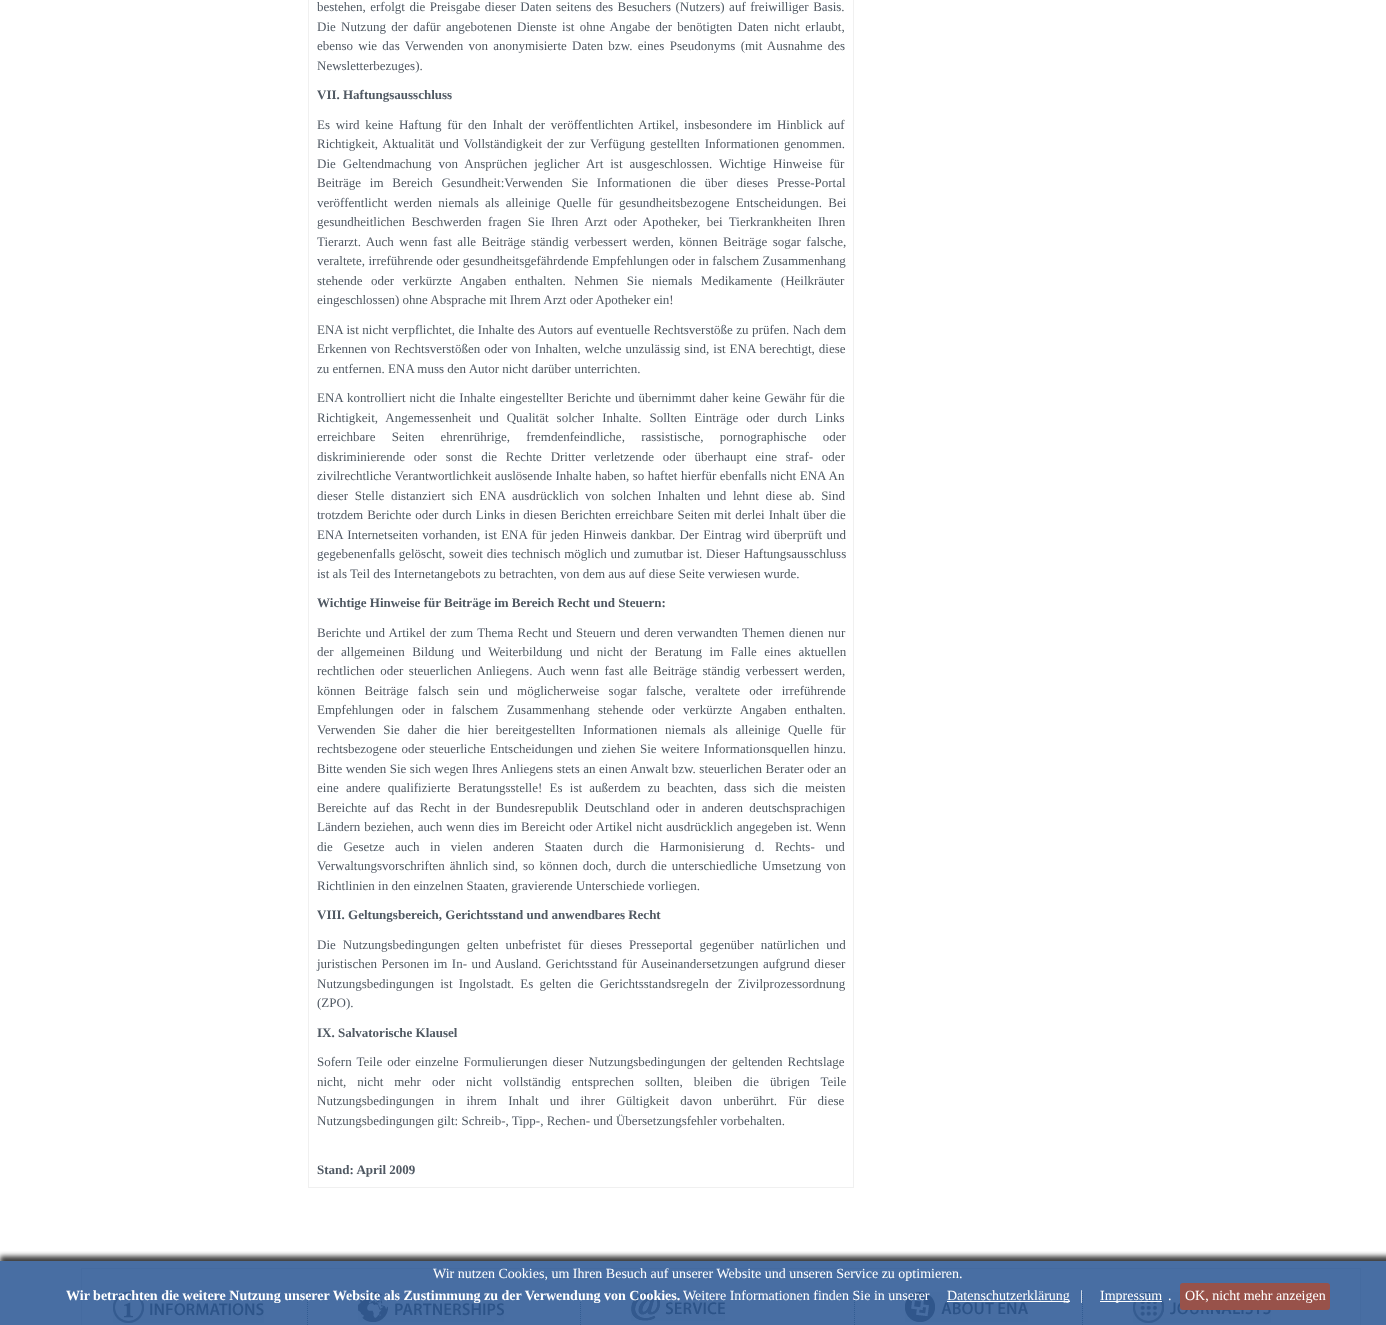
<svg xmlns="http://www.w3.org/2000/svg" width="1386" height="1325">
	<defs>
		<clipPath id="clip1"><rect x="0" y="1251" width="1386" height="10" /></clipPath>
	</defs>
	<rect width="100%" height="100%" fill="#FFFFFF" />
	<rect x="0" y="1261" width="1386" height="64" fill="#486EA3" />
	<rect x="308.5" y="-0.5" width="545" height="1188" fill="none" stroke="#F0F0F0" />
	<g font-family="Liberation Serif" font-size="13" fill="#505963">
		<text x="317" y="11" word-spacing="1.25">bestehen, erfolgt die Preisgabe dieser Daten seitens des Besuchers (Nutzers) auf freiwilliger Basis.</text>
		<text x="317" y="31" word-spacing="2.1">Die Nutzung der dafür angebotenen Dienste ist ohne Angabe der benötigten Daten nicht erlaubt,</text>
		<text x="317" y="50" word-spacing="2">ebenso wie das Verwenden von anonymisierte Daten bzw. eines Pseudonyms (mit Ausnahme des</text>
		<text x="317" y="70">Newsletterbezuges).</text>
	</g>
	<text x="317" y="99" font-family="Liberation Serif" font-size="13" font-weight="700" fill="#505963">VII. Haftungsausschluss</text>
	<g font-family="Liberation Serif" font-size="13" fill="#505963">
		<text x="317" y="129" word-spacing="2.4">Es wird keine Haftung für den Inhalt der veröffentlichten Artikel, insbesondere im Hinblick auf</text>
		<text x="317" y="148" word-spacing="1.75">Richtigkeit, Aktualität und Vollständigkeit der zur Verfügung gestellten Informationen genommen.</text>
		<text x="317" y="168" word-spacing="3.75">Die Geltendmachung von Ansprüchen jeglicher Art ist ausgeschlossen. Wichtige Hinweise für</text>
		<text x="317" y="187" word-spacing="5.5">Beiträge im Bereich Gesundheit:Verwenden Sie Informationen die über dieses Presse-Portal</text>
		<text x="317" y="207" word-spacing="3">veröffentlicht werden niemals als alleinige Quelle für gesundheitsbezogene Entscheidungen. Bei</text>
		<text x="317" y="226" word-spacing="3.25">gesundheitlichen Beschwerden fragen Sie Ihren Arzt oder Apotheker, bei Tierkrankheiten Ihren</text>
		<text x="317" y="246" word-spacing="2.25">Tierarzt. Auch wenn fast alle Beiträge ständig verbessert werden, können Beiträge sogar falsche,</text>
		<text x="317" y="265" word-spacing="0.25">veraltete, irreführende oder gesundheitsgefährdende Empfehlungen oder in falschem Zusammenhang</text>
		<text x="317" y="285" word-spacing="5.25">stehende oder verkürzte Angaben enthalten. Nehmen Sie niemals Medikamente (Heilkräuter</text>
		<text x="317" y="304">eingeschlossen) ohne Absprache mit Ihrem Arzt oder Apotheker ein!</text>
		<text x="317" y="334" word-spacing="0.25">ENA ist nicht verpflichtet, die Inhalte des Autors auf eventuelle Rechtsverstöße zu prüfen. Nach dem</text>
		<text x="317" y="353" word-spacing="0.75">Erkennen von Rechtsverstößen oder von Inhalten, welche unzulässig sind, ist ENA berechtigt, diese</text>
		<text x="317" y="373">zu entfernen. ENA muss den Autor nicht darüber unterrichten.</text>
		<text x="317" y="402" word-spacing="0.75">ENA kontrolliert nicht die Inhalte eingestellter Berichte und übernimmt daher keine Gewähr für die</text>
		<text x="317" y="422" word-spacing="4.75">Richtigkeit, Angemessenheit und Qualität solcher Inhalte. Sollten Einträge oder durch Links</text>
		<text x="317" y="441" word-spacing="13">erreichbare Seiten ehrenrührige, fremdenfeindliche, rassistische, pornographische oder</text>
		<text x="317" y="461" word-spacing="5.5">diskriminierende oder sonst die Rechte Dritter verletzende oder überhaupt eine straf- oder</text>
		<text x="317" y="480" word-spacing="0.25">zivilrechtliche Verantwortlichkeit auslösende Inhalte haben, so haftet hierfür ebenfalls nicht ENA An</text>
		<text x="317" y="500" word-spacing="3.4">dieser Stelle distanziert sich ENA ausdrücklich von solchen Inhalten und lehnt diese ab. Sind</text>
		<text x="317" y="519" word-spacing="0.7">trotzdem Berichte oder durch Links in diesen Berichten erreichbare Seiten mit derlei Inhalt über die</text>
		<text x="317" y="539" word-spacing="1">ENA Internetseiten vorhanden, ist ENA für jeden Hinweis dankbar. Der Eintrag wird überprüft und</text>
		<text x="317" y="558" word-spacing="0.5">gegebenenfalls gelöscht, soweit dies technisch möglich und zumutbar ist. Dieser Haftungsausschluss</text>
		<text x="317" y="578">ist als Teil des Internetangebots zu betrachten, von dem aus auf diese Seite verwiesen wurde.</text>
	</g>
	<text x="317" y="607" font-family="Liberation Serif" font-size="13" font-weight="700" fill="#505963">Wichtige Hinweise für Beiträge im Bereich Recht und Steuern:</text>
	<g font-family="Liberation Serif" font-size="13" fill="#505963">
		<text x="317" y="637" word-spacing="1.1">Berichte und Artikel der zum Thema Recht und Steuern und deren verwandten Themen dienen nur</text>
		<text x="317" y="656" word-spacing="4.25">der allgemeinen Bildung und Weiterbildung und nicht der Beratung im Falle eines aktuellen</text>
		<text x="317" y="675" word-spacing="2.25">rechtlichen oder steuerlichen Anliegens. Auch wenn fast alle Beiträge ständig verbessert werden,</text>
		<text x="317" y="695" word-spacing="6">können Beiträge falsch sein und möglicherweise sogar falsche, veraltete oder irreführende</text>
		<text x="317" y="714" word-spacing="5">Empfehlungen oder in falschem Zusammenhang stehende oder verkürzte Angaben enthalten.</text>
		<text x="317" y="734" word-spacing="4.5">Verwenden Sie daher die hier bereitgestellten Informationen niemals als alleinige Quelle für</text>
		<text x="317" y="753" word-spacing="1.25">rechtsbezogene oder steuerliche Entscheidungen und ziehen Sie weitere Informationsquellen hinzu.</text>
		<text x="317" y="773" word-spacing="0.25">Bitte wenden Sie sich wegen Ihres Anliegens stets an einen Anwalt bzw. steuerlichen Berater oder an</text>
		<text x="317" y="792" word-spacing="4">eine andere qualifizierte Beratungsstelle! Es ist außerdem zu beachten, dass sich die meisten</text>
		<text x="317" y="812" word-spacing="3.1">Bereichte auf das Recht in der Bundesrepublik Deutschland oder in anderen deutschsprachigen</text>
		<text x="317" y="831" word-spacing="0.75">Ländern beziehen, auch wenn dies im Bereicht oder Artikel nicht ausdrücklich angegeben ist. Wenn</text>
		<text x="317" y="851" word-spacing="7.25">die Gesetze auch in vielen anderen Staaten durch die Harmonisierung d. Rechts- und</text>
		<text x="317" y="870" word-spacing="1.75">Verwaltungsvorschriften ähnlich sind, so können doch, durch die unterschiedliche Umsetzung von</text>
		<text x="317" y="890">Richtlinien in den einzelnen Staaten, gravierende Unterschiede vorliegen.</text>
	</g>
	<text x="317" y="919" font-family="Liberation Serif" font-size="13" font-weight="700" fill="#505963">VIII. Geltungsbereich, Gerichtsstand und anwendbares Recht</text>
	<g font-family="Liberation Serif" font-size="13" fill="#505963">
		<text x="317" y="949" word-spacing="3.75">Die Nutzungsbedingungen gelten unbefristet für dieses Presseportal gegenüber natürlichen und</text>
		<text x="317" y="968" word-spacing="1.25">juristischen Personen im In- und Ausland. Gerichtsstand für Auseinandersetzungen aufgrund dieser</text>
		<text x="317" y="988" word-spacing="3">Nutzungsbedingungen ist Ingolstadt. Es gelten die Gerichtsstandsregeln der Zivilprozessordnung</text>
		<text x="317" y="1007">(ZPO).</text>
	</g>
	<text x="317" y="1037" font-family="Liberation Serif" font-size="13" font-weight="700" fill="#505963">IX. Salvatorische Klausel</text>
	<g font-family="Liberation Serif" font-size="13" fill="#505963">
		<text x="317" y="1066" word-spacing="1.75">Sofern Teile oder einzelne Formulierungen dieser Nutzungsbedingungen der geltenden Rechtslage</text>
		<text x="317" y="1086" word-spacing="7.75">nicht, nicht mehr oder nicht vollständig entsprechen sollten, bleiben die übrigen Teile</text>
		<text x="317" y="1105" word-spacing="8">Nutzungsbedingungen in ihrem Inhalt und ihrer Gültigkeit davon unberührt. Für diese</text>
		<text x="317" y="1125">Nutzungsbedingungen gilt: Schreib-, Tipp-, Rechen- und Übersetzungsfehler vorbehalten.</text>
	</g>
	<text x="317" y="1174" font-family="Liberation Serif" font-size="13" font-weight="700" fill="#505963">Stand: April 2009</text>
	<rect x="81.5" y="1268.5" width="1279" height="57" fill="none" stroke="#456BA0" />
	<image x="113" y="1292" width="151" height="31" href="assets/img1.png" />
	<path d="M307.5 1292V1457" fill="none" stroke="#325C92" stroke-dasharray="1 1" />
	<image x="358" y="1292" width="146" height="30" href="assets/img2.png" />
	<path d="M580.5 1292V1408" fill="none" stroke="#325C92" stroke-dasharray="1 1" />
	<image x="631" y="1292" width="94" height="29" href="assets/img3.png" />
	<path d="M854.5 1292V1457" fill="none" stroke="#325C92" stroke-dasharray="1 1" />
	<image x="905" y="1292" width="123" height="30" href="assets/img4.png" />
	<path d="M1082.5 1292V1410" fill="none" stroke="#325C92" stroke-dasharray="1 1" />
	<image x="1133" y="1292" width="138" height="31" href="assets/img5.png" />
	<g clip-path="url(#clip1)">
		<rect x="0" y="1256" width="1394" height="64" fill="#000000" fill-opacity="0.75" filter="blur(2.5px)" />
	</g>
	<text x="433" y="1278" font-family="Liberation Serif" font-size="14" fill="#FFFFFF">Wir nutzen Cookies, um Ihren Besuch auf unserer Website und unseren Service zu optimieren.</text>
	<text x="66" y="1300" font-family="Liberation Serif" font-size="14" font-weight="700" fill="#FFFFFF">Wir betrachten die weitere Nutzung unserer Website als Zustimmung zu der Verwendung von Cookies.</text>
	<text x="683" y="1300" font-family="Liberation Serif" font-size="14" fill="#FFFFFF">Weitere Informationen finden Sie in unserer</text>
	<rect x="947" y="1301" width="123" height="1" fill="#FFFFFF" />
	<g font-family="Liberation Serif" font-size="14" fill="#FFFFFF">
		<text x="947" y="1300">Datenschutzerklärung</text>
		<text x="1080" y="1300">|</text>
	</g>
	<rect x="1100" y="1301" width="62" height="1" fill="#FFFFFF" />
	<g font-family="Liberation Serif" font-size="14" fill="#FFFFFF">
		<text x="1100" y="1300">Impressum</text>
		<text x="1168" y="1300">.</text>
	</g>
	<rect x="1180" y="1283" width="150" height="27" rx="3" fill="#98524A" />
	<text x="1185" y="1300" font-family="Liberation Serif" font-size="14" fill="#FFFFFF">OK, nicht mehr anzeigen</text>
</svg>
